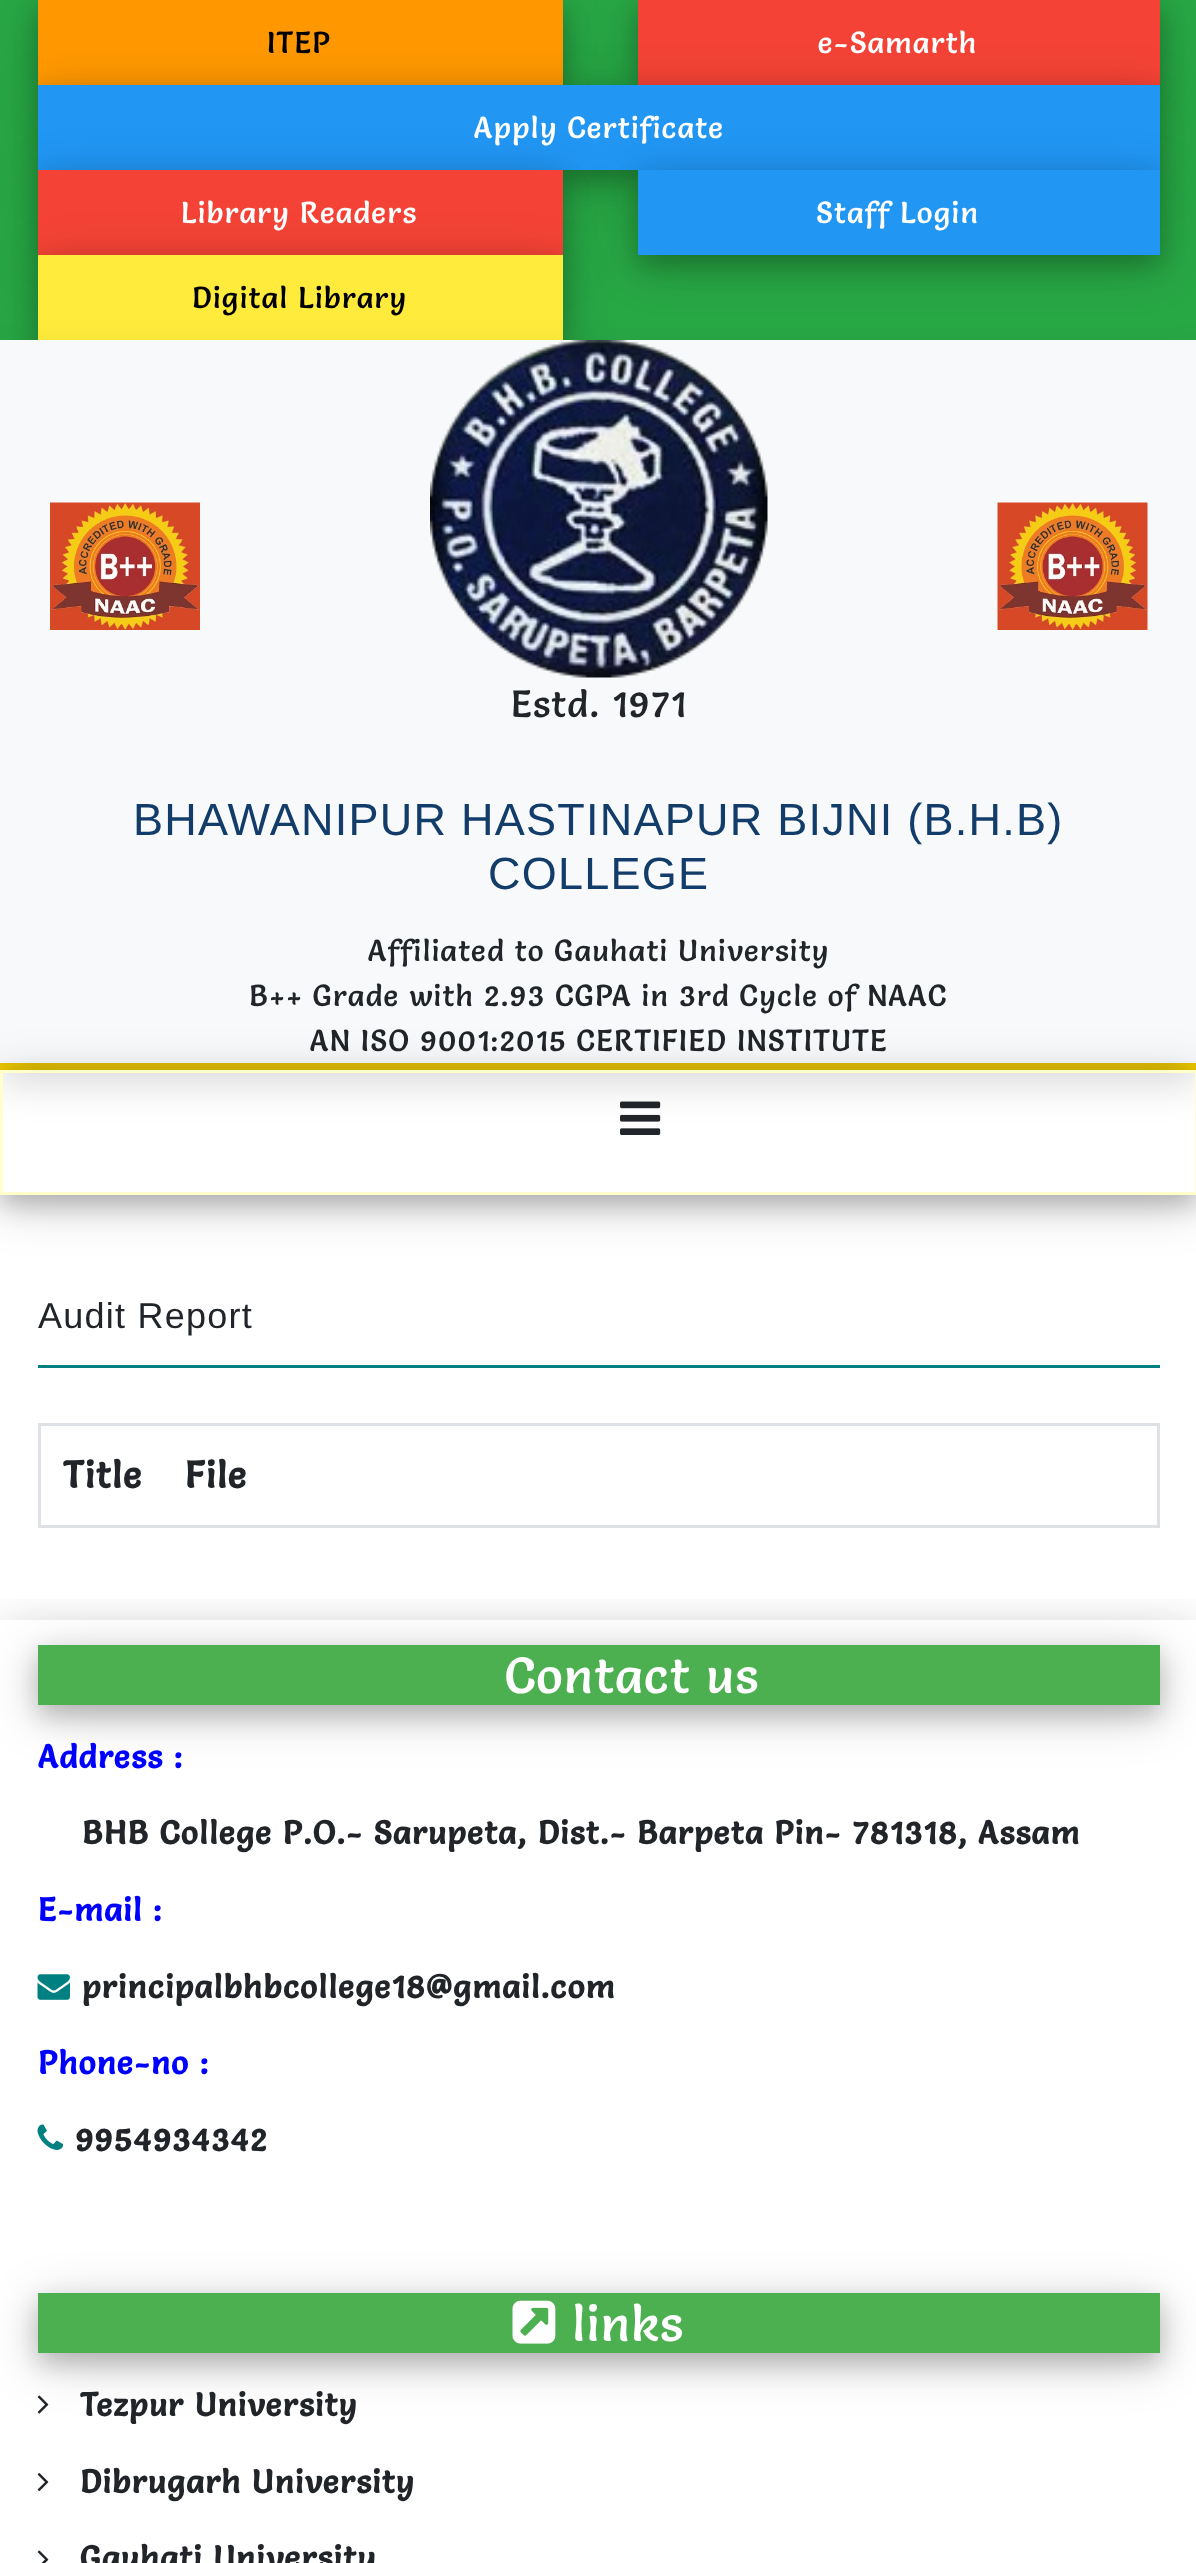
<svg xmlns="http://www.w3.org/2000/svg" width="1196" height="2563">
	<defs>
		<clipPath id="clip1"><path d="M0 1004H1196V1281H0ZM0 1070H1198V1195H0Z" clip-rule="evenodd" /></clipPath>
		<clipPath id="clip2"><path d="M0 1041H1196V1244H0ZM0 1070H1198V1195H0Z" clip-rule="evenodd" /></clipPath>
		<clipPath id="clip3"><rect x="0" y="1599" width="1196" height="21" /></clipPath>
	</defs>
	<rect width="100%" height="100%" fill="#FFFFFF" />
	<rect x="0" y="0" width="1196" height="340" fill="#28A745" />
	<rect x="38" y="10" width="525" height="85" fill="#000000" fill-opacity="0.19" filter="blur(25px)" />
	<rect x="38" y="10" width="525" height="85" fill="#000000" fill-opacity="0.2" filter="blur(12.5px)" />
	<rect x="38" y="0" width="525" height="85" fill="#FF9800" />
	<text x="267" y="53" font-family="Salsa" font-size="30" letter-spacing="1.25" fill="#000000">ITEP</text>
	<rect x="638" y="10" width="522" height="85" fill="#000000" fill-opacity="0.19" filter="blur(25px)" />
	<rect x="638" y="10" width="522" height="85" fill="#000000" fill-opacity="0.2" filter="blur(12.5px)" />
	<rect x="638" y="0" width="522" height="85" fill="#F44336" />
	<text x="818" y="53" font-family="Salsa" font-size="30" letter-spacing="1.25" fill="#FFFFFF">e-Samarth</text>
	<rect x="38" y="95" width="1122" height="85" fill="#000000" fill-opacity="0.19" filter="blur(25px)" />
	<rect x="38" y="95" width="1122" height="85" fill="#000000" fill-opacity="0.2" filter="blur(12.5px)" />
	<rect x="38" y="85" width="1122" height="85" fill="#2196F3" />
	<text x="474" y="138" font-family="Salsa" font-size="30" letter-spacing="1.25" fill="#FFFFFF">Apply Certificate</text>
	<rect x="38" y="180" width="525" height="85" fill="#000000" fill-opacity="0.19" filter="blur(25px)" />
	<rect x="38" y="180" width="525" height="85" fill="#000000" fill-opacity="0.2" filter="blur(12.5px)" />
	<rect x="38" y="170" width="525" height="85" fill="#F44336" />
	<text x="181" y="223" font-family="Salsa" font-size="30" letter-spacing="1.25" fill="#FFFFFF">Library Readers</text>
	<rect x="638" y="180" width="522" height="85" fill="#000000" fill-opacity="0.19" filter="blur(25px)" />
	<rect x="638" y="180" width="522" height="85" fill="#000000" fill-opacity="0.2" filter="blur(12.5px)" />
	<rect x="638" y="170" width="522" height="85" fill="#2196F3" />
	<text x="816" y="223" font-family="Salsa" font-size="30" letter-spacing="1.25" fill="#FFFFFF">Staff Login</text>
	<rect x="38" y="265" width="525" height="85" fill="#000000" fill-opacity="0.19" filter="blur(25px)" />
	<rect x="38" y="265" width="525" height="85" fill="#000000" fill-opacity="0.2" filter="blur(12.5px)" />
	<rect x="38" y="255" width="525" height="85" fill="#FFEB3B" />
	<text x="192" y="308" font-family="Salsa" font-size="30" letter-spacing="1.25" fill="#000000">Digital Library</text>
	<rect x="0" y="1063" width="1196" height="7" fill="#FFD700" />
	<rect x="0" y="360" width="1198" height="723" fill="#000000" fill-opacity="0.15" filter="blur(19px)" />
	<rect x="0" y="340" width="1196" height="723" fill="#F8F9FA" />
	<image x="50" y="502" width="150" height="128" href="assets/img1.png" />
	<image x="997" y="502" width="151" height="128" href="assets/img2.png" />
	<image x="430" y="340" width="338" height="338" href="assets/img3.png" />
	<text x="511" y="717" font-family="Salsa" font-size="37.5" letter-spacing="1.25" fill="#212529">Estd. 1971</text>
	<g font-family="Liberation Sans" font-size="45" letter-spacing="1.25" fill="#123C69">
		<text x="133" y="835">BHAWANIPUR HASTINAPUR BIJNI (B.H.B)</text>
		<text x="488" y="889">COLLEGE</text>
	</g>
	<g font-family="Salsa" font-size="30" letter-spacing="1.25" fill="#212529">
		<text x="368" y="961">Affiliated to Gauhati University</text>
		<text x="249" y="1006">B++ Grade with 2.93 CGPA in 3rd Cycle of NAAC</text>
		<text x="310" y="1051">AN ISO 9001:2015 CERTIFIED INSTITUTE</text>
	</g>
	<g clip-path="url(#clip1)">
		<rect x="0" y="1080" width="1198" height="125" fill="#000000" fill-opacity="0.19" filter="blur(25px)" />
	</g>
	<g clip-path="url(#clip2)">
		<rect x="0" y="1080" width="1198" height="125" fill="#000000" fill-opacity="0.2" filter="blur(12.5px)" />
	</g>
	<rect x="1.5" y="1071.5" width="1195" height="122" fill="none" stroke="#FFFFCC" stroke-width="3" />
	<image x="620" y="1101" width="41" height="34" href="assets/img4.png" />
	<text x="38" y="1328" font-family="Liberation Sans" font-size="36" letter-spacing="1.25" fill="#212529">Audit Report</text>
	<rect x="38" y="1365" width="1122" height="3" fill="#008080" />
	<rect x="39.5" y="1424.5" width="1119" height="102" fill="none" stroke="#DEE2E6" stroke-width="3" />
	<g font-family="Salsa" font-size="37.5" font-weight="700" letter-spacing="1.25" fill="#212529">
		<text x="63" y="1488">Title</text>
		<text x="185" y="1488">File</text>
	</g>
	<g clip-path="url(#clip3)">
		<rect x="0" y="1630" width="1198" height="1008" fill="#000000" fill-opacity="0.19" filter="blur(25px)" />
	</g>
	<rect x="38" y="1655" width="1122" height="60" fill="#000000" fill-opacity="0.19" filter="blur(25px)" />
	<rect x="38" y="1655" width="1122" height="60" fill="#000000" fill-opacity="0.2" filter="blur(12.5px)" />
	<rect x="38" y="1645" width="1122" height="60" fill="#4CAF50" />
	<text x="505" y="1693" font-family="Salsa" font-size="50" letter-spacing="1.25" fill="#FFFFFF">Contact us</text>
	<text x="38" y="1768" font-family="Salsa" font-size="32.5" font-weight="700" letter-spacing="1.25" fill="#0000FF">Address :</text>
	<text x="82" y="1844" font-family="Salsa" font-size="32.5" font-weight="700" letter-spacing="1.25" fill="#212529">BHB College P.O.- Sarupeta, Dist.- Barpeta Pin- 781318, Assam</text>
	<text x="38" y="1921" font-family="Salsa" font-size="32.5" font-weight="700" letter-spacing="1.25" fill="#0000FF">E-mail :</text>
	<image x="37" y="1974" width="33" height="26" href="assets/img5.png" />
	<text x="82" y="1998" font-family="Salsa" font-size="32.5" font-weight="700" letter-spacing="1.25" fill="#212529">principalbhbcollege18@gmail.com</text>
	<text x="38" y="2074" font-family="Salsa" font-size="32.5" font-weight="700" letter-spacing="1.25" fill="#0000FF">Phone-no :</text>
	<image x="37" y="2124" width="26" height="26" href="assets/img6.png" />
	<text x="75" y="2151" font-family="Salsa" font-size="32.5" font-weight="700" letter-spacing="1.25" fill="#212529">9954934342</text>
	<rect x="38" y="2303" width="1122" height="60" fill="#000000" fill-opacity="0.19" filter="blur(25px)" />
	<rect x="38" y="2303" width="1122" height="60" fill="#000000" fill-opacity="0.2" filter="blur(12.5px)" />
	<rect x="38" y="2293" width="1122" height="60" fill="#4CAF50" />
	<image x="512" y="2300" width="44" height="44" href="assets/img7.png" />
	<text x="572" y="2341" font-family="Salsa" font-size="50" letter-spacing="1.25" fill="#FFFFFF">links</text>
	<image x="37" y="2395" width="12" height="19" href="assets/img8.png" />
	<text x="80" y="2416" font-family="Salsa" font-size="32.5" font-weight="700" letter-spacing="1.25" fill="#212529">Tezpur University</text>
	<image x="37" y="2473" width="12" height="19" href="assets/img9.png" />
	<text x="80" y="2493" font-family="Salsa" font-size="32.5" font-weight="700" letter-spacing="1.25" fill="#212529">Dibrugarh University</text>
	<image x="37" y="2550" width="12" height="13" href="assets/img10.png" />
	<text x="80" y="2569" font-family="Salsa" font-size="32.5" font-weight="700" letter-spacing="1.25" fill="#212529">Gauhati University</text>
</svg>
